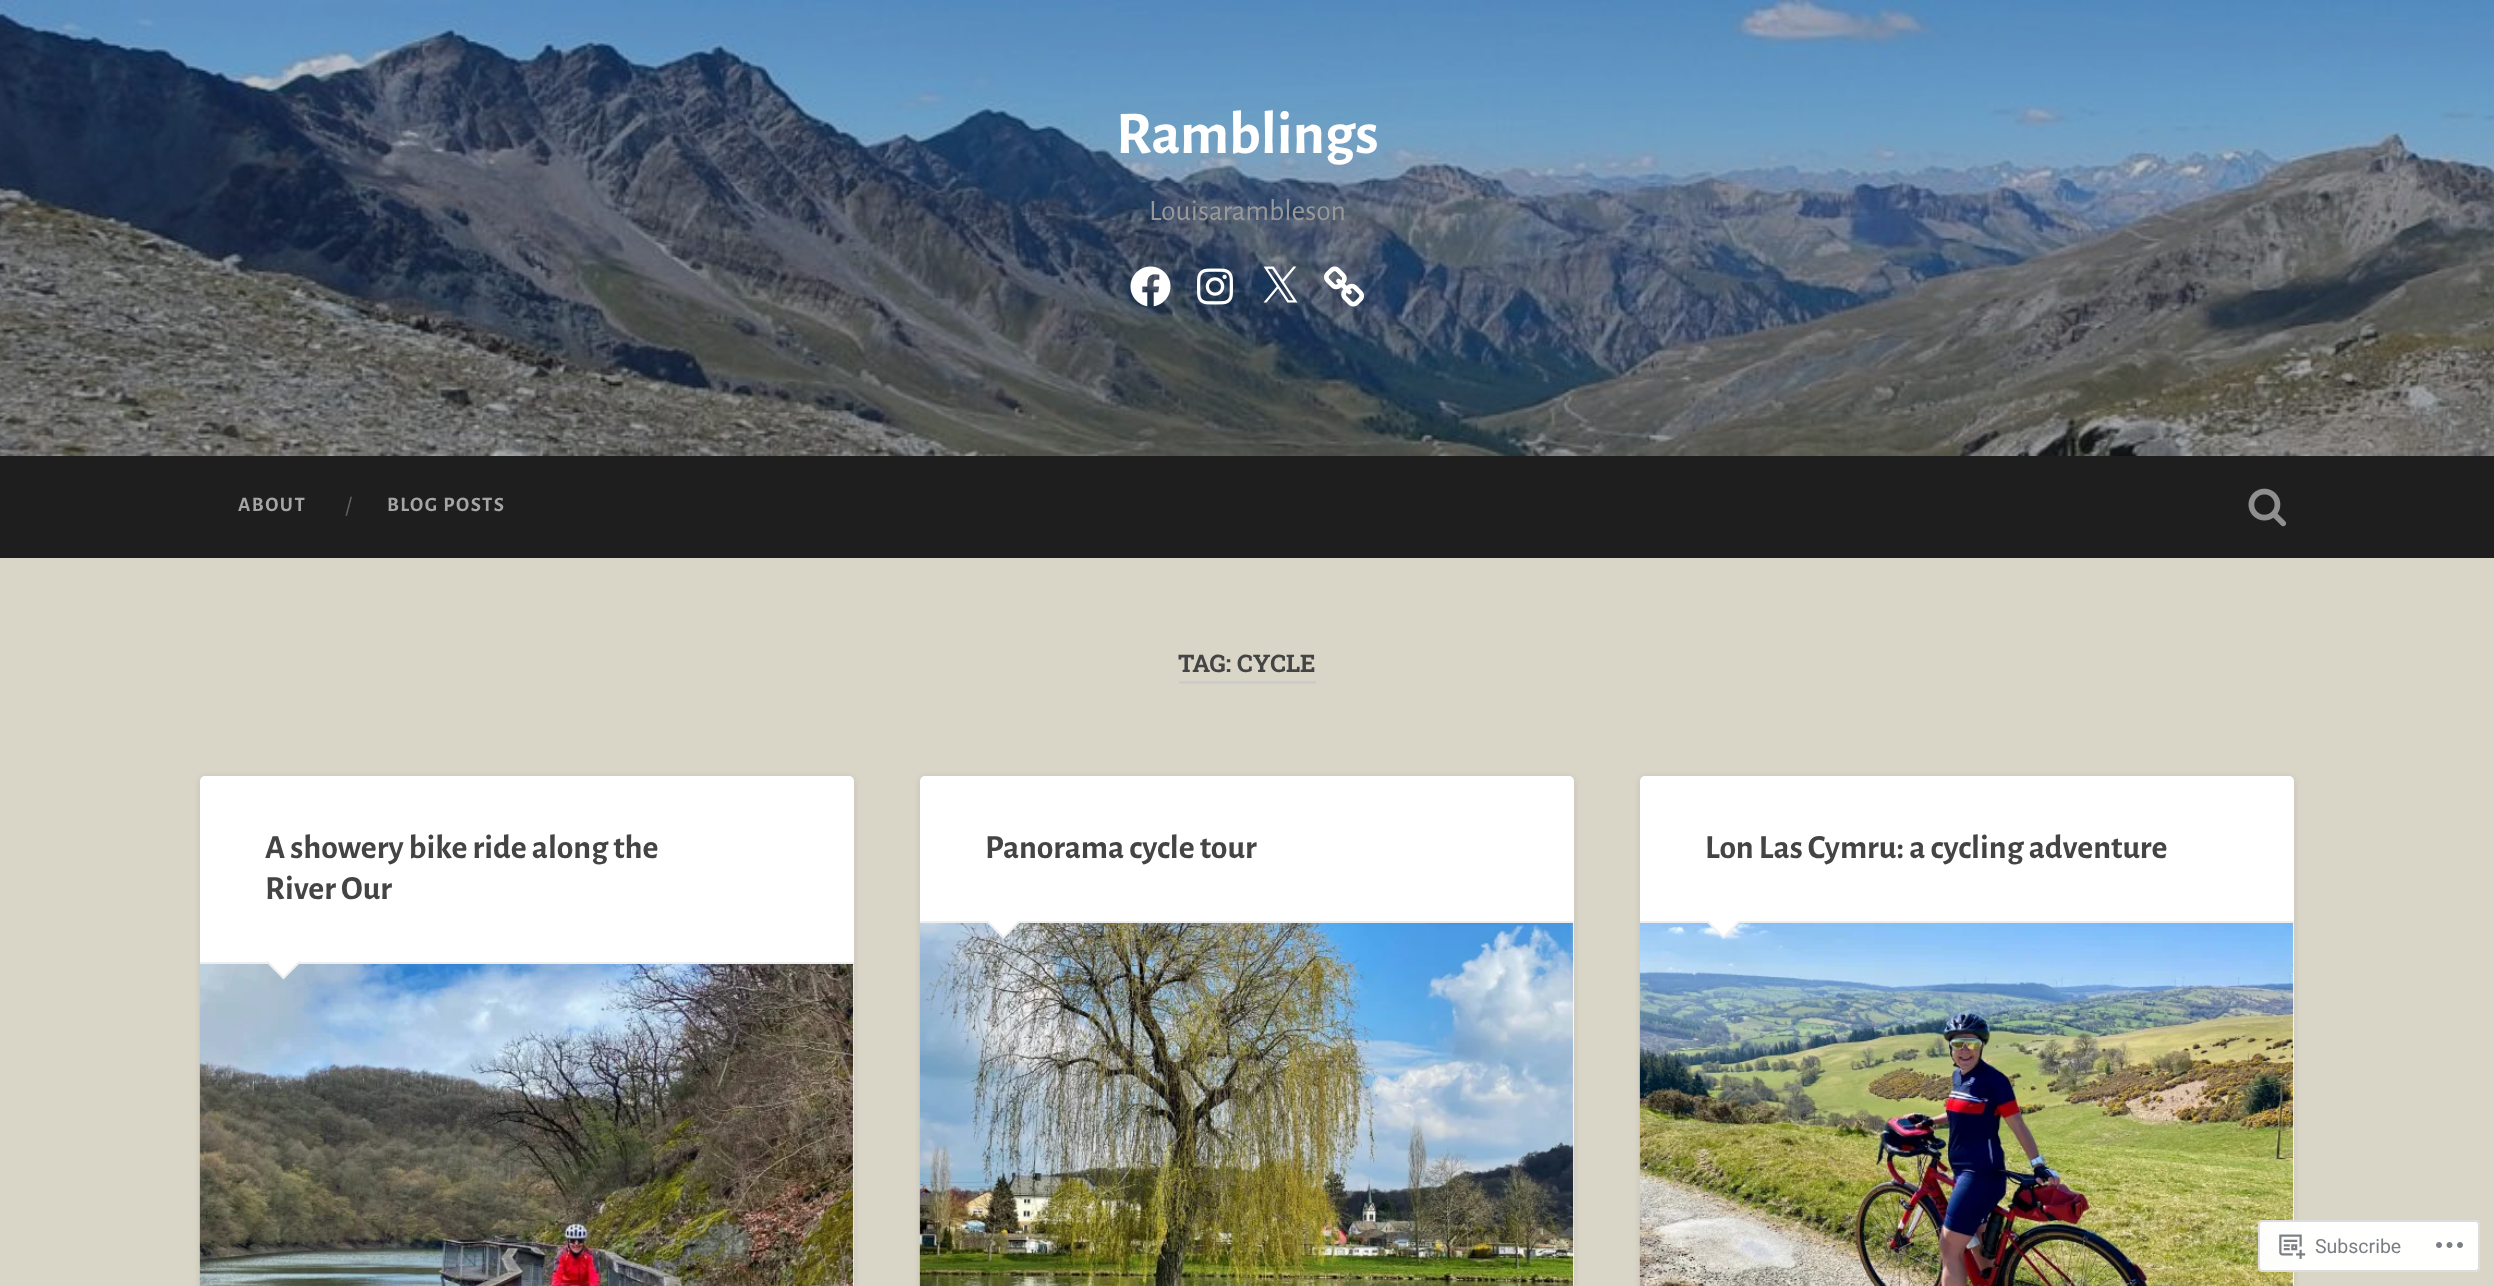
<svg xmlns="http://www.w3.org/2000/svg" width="2494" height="1286">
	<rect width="100%" height="100%" fill="#D9D6C8" />
	<image x="0" y="0" width="2494" height="456" href="assets/img1.png" />
	<text x="1116" y="153" font-family="Alegreya Sans" font-size="60.75" font-weight="700" fill="#FFFFFF">Ramblings</text>
	<text x="1149" y="220" font-family="Alegreya Sans" font-size="29.75" fill="#999999">Louisarambleson</text>
	<image x="1130" y="266" width="41" height="41" href="assets/img2.png" />
	<image x="1197" y="268" width="36" height="37" href="assets/img3.png" />
	<image x="1263" y="266" width="35" height="37" href="assets/img4.png" />
	<image x="1324" y="266" width="40" height="41" href="assets/img5.png" />
	<rect x="0" y="456" width="2494" height="102" fill="#1E1E1E" />
	<text x="238" y="511" font-family="Alegreya Sans" font-size="20.5" font-weight="700" letter-spacing="1.5" fill="#A5A5A5">ABOUT</text>
	<text x="345" y="513" font-family="Alegreya Sans" font-size="24" fill="#626262">/</text>
	<text x="387" y="511" font-family="Alegreya Sans" font-size="20.5" font-weight="700" letter-spacing="1.5" fill="#A5A5A5">BLOG POSTS</text>
	<image x="2248" y="488" width="39" height="39" href="assets/img6.png" />
	<rect x="1179" y="681" width="137" height="3" fill="#CCCCCC" />
	<text x="1178" y="672" font-family="Roboto Slab" font-size="24.25" font-weight="700" fill="#444444">TAG: CYCLE</text>
	<rect x="200" y="777" width="654" height="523" rx="5" fill="#000000" fill-opacity="0.1" filter="blur(3px)" />
	<rect x="200" y="776" width="654" height="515" rx="5" fill="#FFFFFF" />
	<image x="199" y="963" width="655" height="323" href="assets/img7.png" />
	<rect x="200" y="962" width="654" height="2" fill="#EEEEEE" />
	<g font-family="Alegreya Sans" font-size="33.75" font-weight="700" fill="#444444">
		<text x="265" y="858">A showery bike ride along the</text>
		<text x="265" y="899">River Our</text>
	</g>
	<path d="M265.5 961.5H301.5L283.5 979.5Z" fill="#EEEEEE" />
	<path d="M267 960H300L283.5 976.5Z" fill="#FFFFFF" />
	<rect x="920" y="777" width="654" height="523" rx="5" fill="#000000" fill-opacity="0.1" filter="blur(3px)" />
	<rect x="920" y="776" width="654" height="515" rx="5" fill="#FFFFFF" />
	<image x="919" y="922" width="655" height="364" href="assets/img8.png" />
	<rect x="920" y="921" width="654" height="2" fill="#EEEEEE" />
	<text x="985" y="858" font-family="Alegreya Sans" font-size="33.75" font-weight="700" fill="#444444">Panorama cycle tour</text>
	<path d="M985.5 921H1021.5L1003.5 939Z" fill="#EEEEEE" />
	<path d="M987 919.5H1020L1003.5 936Z" fill="#FFFFFF" />
	<rect x="1640" y="777" width="654" height="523" rx="5" fill="#000000" fill-opacity="0.1" filter="blur(3px)" />
	<rect x="1640" y="776" width="654" height="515" rx="5" fill="#FFFFFF" />
	<image x="1639" y="922" width="655" height="364" href="assets/img9.png" />
	<rect x="1640" y="921" width="654" height="2" fill="#EEEEEE" />
	<text x="1705" y="858" font-family="Alegreya Sans" font-size="33.75" font-weight="700" fill="#444444">Lon Las Cymru: a cycling adventure</text>
	<path d="M1705.5 921H1741.5L1723.5 939Z" fill="#EEEEEE" />
	<path d="M1707 919.5H1740L1723.5 936Z" fill="#FFFFFF" />
	<rect x="2258" y="1220" width="222" height="52" rx="5" fill="#FFFFFF" fill-opacity="0.98" />
	<rect x="2259" y="1221" width="220" height="50" rx="4" fill="none" stroke="#DCDCDE" stroke-opacity="0.98" stroke-width="2" />
	<image x="2279" y="1234" width="27" height="25" href="assets/img10.png" />
	<text x="2315" y="1253" font-family="Roboto" font-size="19.5" fill="#7A7E83">Subscribe</text>
	<image x="2436" y="1242" width="27" height="6" href="assets/img11.png" />
</svg>
